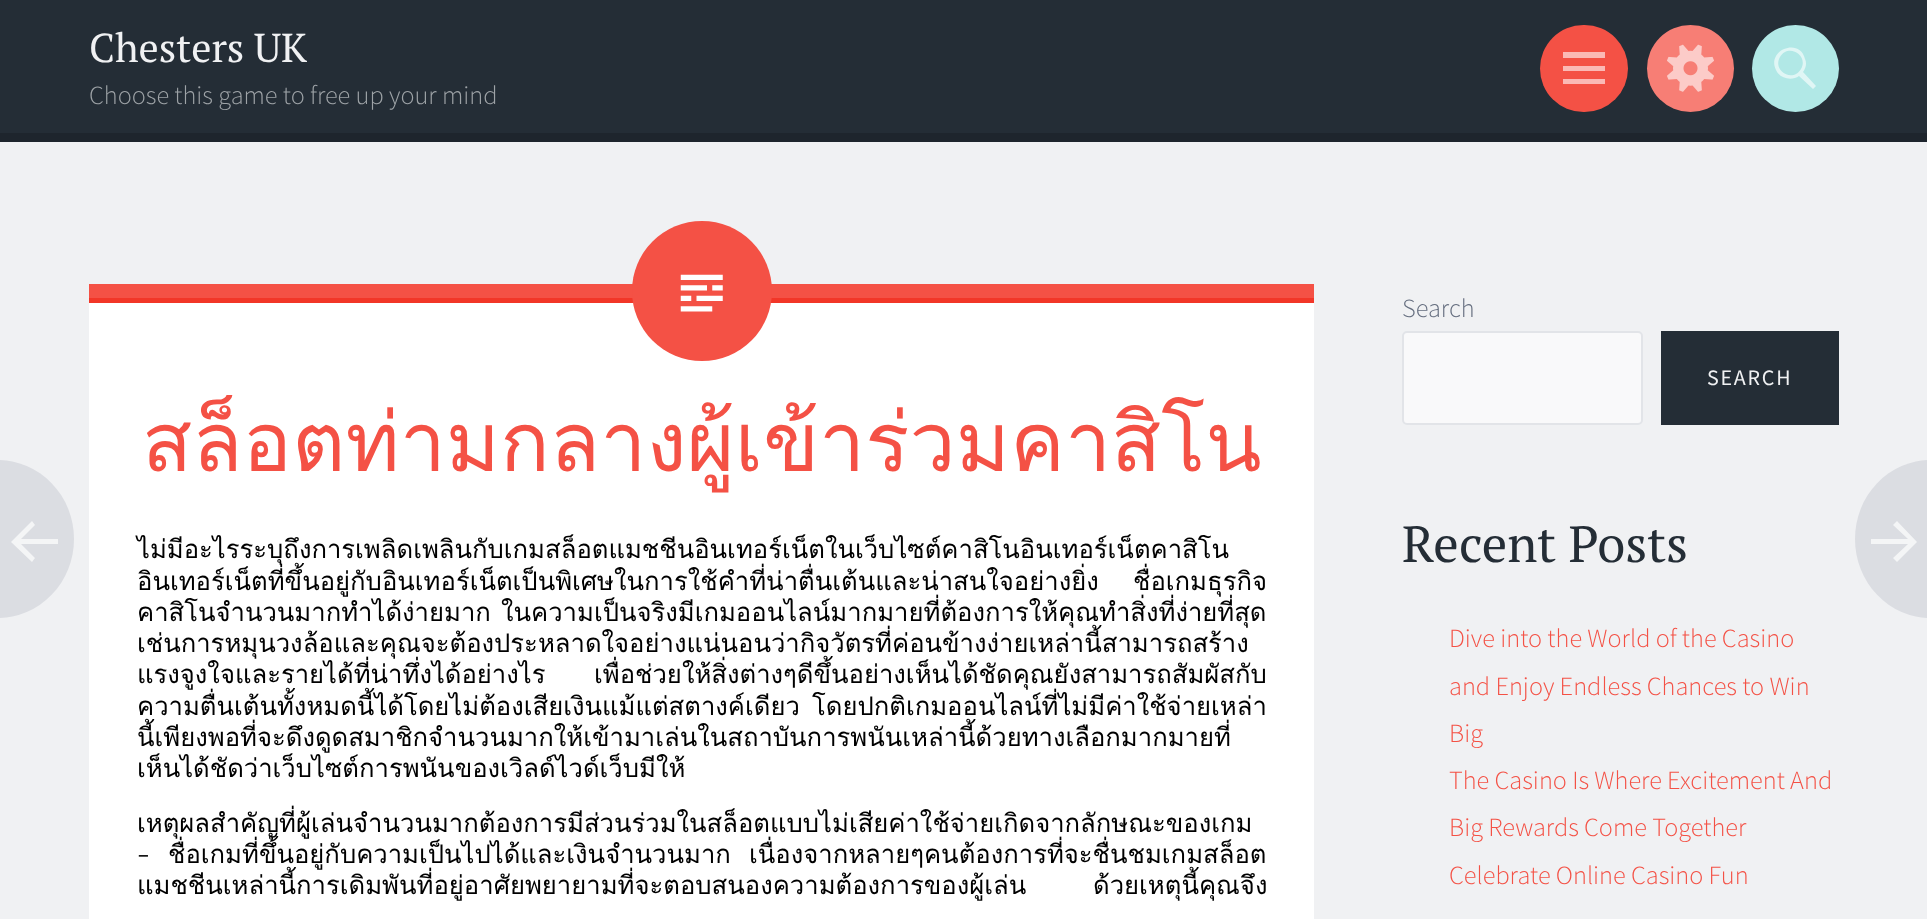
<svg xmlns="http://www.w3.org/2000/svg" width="1927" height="919">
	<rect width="100%" height="100%" fill="#F0F1F3" />
	<rect x="0" y="0" width="1927" height="133" fill="#242D36" />
	<rect x="0" y="133" width="1927" height="9" fill="#1E252D" />
	<text x="89" y="62" font-family="PT Serif" font-size="40.25" fill="#F0F1F3">Chesters UK</text>
	<text x="89" y="104" font-family="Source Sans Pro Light" font-size="26.25" font-weight="300" fill="#9EA3A7">Choose this game to free up your mind</text>
	<rect x="1540" y="25" width="88" height="87" rx="43.5" fill="#F45145" />
	<path d="M1563 84V79H1605V84ZM1563 52H1605V58H1563ZM1563 71V66H1605V71Z" fill="#FBB9B5" />
	<circle cx="1690.5" cy="68.5" r="43.5" fill="#F77E75" />
	<image x="1667" y="44" width="47" height="48" href="assets/img1.png" />
	<circle cx="1795.5" cy="68.5" r="43.5" fill="#B1E8E6" />
	<path d="M1816 86L1813 89L1799 76C1792 81 1780 79 1776 70C1766 50 1800 37 1805 59C1807 63 1806 68 1803 72ZM1780 57C1772 71 1793 83 1801 69C1809 55 1788 43 1780 57Z" fill="#E0F6F5" />
	<rect x="89" y="303" width="1225" height="616" fill="#FFFFFF" />
	<rect x="89" y="284" width="1225" height="14" fill="#F45145" />
	<rect x="89" y="298" width="1225" height="5" fill="#F23628" />
	<circle cx="702" cy="291" r="70" fill="#F45145" />
	<image x="680" y="274" width="43" height="38" href="assets/img2.png" />
	<text x="142" y="471" font-family="Loma" font-size="82.25" fill="#F45145">สล็อตท่ามกลางผู้เข้าร่วมคาสิโน</text>
	<g font-family="Loma" font-size="25.65" fill="#000000">
		<text x="137" y="558">ไม่มีอะไรระบุถึงการเพลิดเพลินกับเกมสล็อตแมชชีนอินเทอร์เน็ตในเว็บไซต์คาสิโนอินเทอร์เน็ตคาสิโน</text>
		<text x="137" y="590">อินเทอร์เน็ตที่ขึ้นอยู่กับอินเทอร์เน็ตเป็นพิเศษในการใช้คำที่น่าตื่นเต้นและน่าสนใจอย่างยิ่ง</text>
		<text x="1133" y="590">ชื่อเกมธุรกิจ</text>
		<text x="137" y="621">คาสิโนจำนวนมากทำได้ง่ายมาก</text>
		<text x="501" y="621">ในความเป็นจริงมีเกมออนไลน์มากมายที่ต้องการให้คุณทำสิ่งที่ง่ายที่สุด</text>
		<text x="137" y="652">เช่นการหมุนวงล้อและคุณจะต้องประหลาดใจอย่างแน่นอนว่ากิจวัตรที่ค่อนข้างง่ายเหล่านี้สามารถสร้าง</text>
		<text x="137" y="683">แรงจูงใจและรายได้ที่น่าทึ่งได้อย่างไร</text>
		<text x="594" y="683">เพื่อช่วยให้สิ่งต่างๆดีขึ้นอย่างเห็นได้ชัดคุณยังสามารถสัมผัสกับ</text>
		<text x="137" y="715">ความตื่นเต้นทั้งหมดนี้ได้โดยไม่ต้องเสียเงินแม้แต่สตางค์เดียว</text>
		<text x="812" y="715">โดยปกติเกมออนไลน์ที่ไม่มีค่าใช้จ่ายเหล่า</text>
		<text x="137" y="746">นี้เพียงพอที่จะดึงดูดสมาชิกจำนวนมากให้เข้ามาเล่นในสถาบันการพนันเหล่านี้ด้วยทางเลือกมากมายที่</text>
		<text x="137" y="777">เห็นได้ชัดว่าเว็บไซต์การพนันของเวิลด์ไวด์เว็บมีให้</text>
		<text x="137" y="832">เหตุผลสำคัญที่ผู้เล่นจำนวนมากต้องการมีส่วนร่วมในสล็อตแบบไม่เสียค่าใช้จ่ายเกิดจากลักษณะของเกม</text>
	</g>
	<text x="137" y="863" font-family="Carlito" font-size="25.65" fill="#000000">–</text>
	<g font-family="Loma" font-size="25.65" fill="#000000">
		<text x="168" y="863">ชื่อเกมที่ขึ้นอยู่กับความเป็นไปได้และเงินจำนวนมาก</text>
		<text x="749" y="863">เนื่องจากหลายๆคนต้องการที่จะชื่นชมเกมสล็อต</text>
		<text x="137" y="894">แมชชีนเหล่านี้การเดิมพันที่อยู่อาศัยพยายามที่จะตอบสนองความต้องการของผู้เล่น</text>
		<text x="1093" y="894">ด้วยเหตุนี้คุณจึง</text>
	</g>
	<rect x="-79" y="460" width="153" height="158" rx="79" fill="#DBDDE2" />
	<path d="M32 521L35 525L21 539H58V544H21L35 558L32 562L11 542Z" fill="#F4F5F6" />
	<rect x="1855" y="460" width="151" height="158" rx="79" fill="#DBDDE2" />
	<path d="M1897 521L1917 542L1897 562L1893 558L1908 544H1871V539H1908L1893 525Z" fill="#F4F5F6" />
	<text x="1402" y="317" font-family="Source Sans Pro Light" font-size="26.25" font-weight="300" fill="#656E7F">Search</text>
	<rect x="1403" y="332" width="239" height="92" rx="4" fill="#F9F9FA" stroke="#E2E4E8" stroke-width="2" />
	<rect x="1661" y="331" width="178" height="94" fill="#242D36" />
	<text x="1707" y="385" font-family="Source Sans Pro" font-size="22" letter-spacing="1.75" fill="#F0F1F3">SEARCH</text>
	<text x="1402" y="562" font-family="PT Serif" font-size="50.75" fill="#242D36">Recent Posts</text>
	<g font-family="Source Sans Pro Light" font-size="26.25" font-weight="300" fill="#F45145">
		<text x="1449" y="647">Dive into the World of the Casino</text>
		<text x="1449" y="695">and Enjoy Endless Chances to Win</text>
		<text x="1449" y="742">Big</text>
		<text x="1449" y="789">The Casino Is Where Excitement And</text>
		<text x="1449" y="836">Big Rewards Come Together</text>
		<text x="1449" y="884">Celebrate Online Casino Fun</text>
	</g>
</svg>
